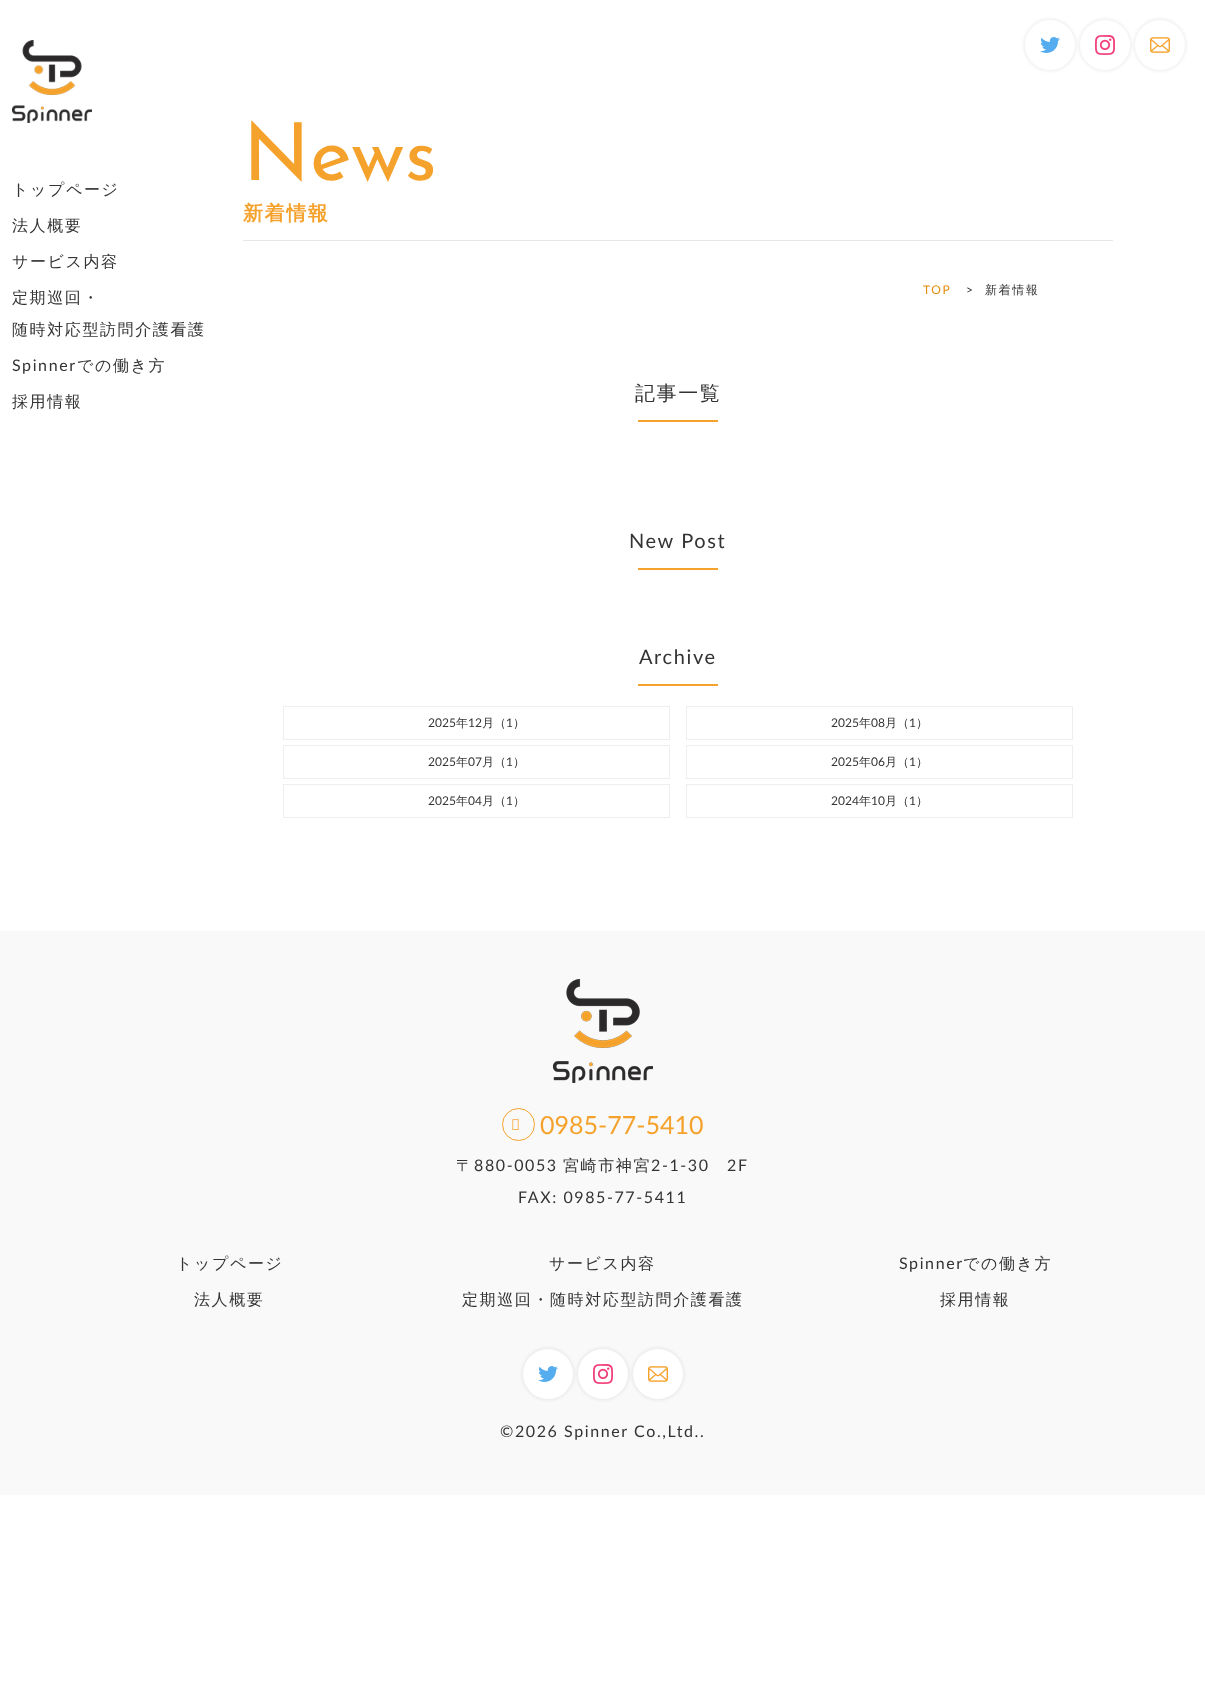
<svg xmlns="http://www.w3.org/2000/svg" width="1205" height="1693">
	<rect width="100%" height="100%" fill="#FFFFFF" />
	<rect x="1023" y="18" width="54" height="54" rx="27" fill="#888888" fill-opacity="0.1" filter="blur(1px)" />
	<circle cx="1050" cy="45" r="25" fill="#FFFFFF" />
	<image x="1040" y="37" width="20" height="16" href="assets/img1.png" />
	<rect x="1078" y="18" width="54" height="54" rx="27" fill="#888888" fill-opacity="0.1" filter="blur(1px)" />
	<circle cx="1105" cy="45" r="25" fill="#FFFFFF" />
	<image x="1095" y="35" width="20" height="20" href="assets/img2.png" />
	<rect x="1133" y="18" width="54" height="54" rx="27" fill="#888888" fill-opacity="0.1" filter="blur(1px)" />
	<circle cx="1160" cy="45" r="25" fill="#FFFFFF" />
	<image x="1150" y="37" width="20" height="16" href="assets/img3.png" />
	<image x="12" y="40" width="80" height="83" href="assets/img4.png" />
	<g font-family="WenQuanYi Zen Hei" font-size="16" font-weight="500" letter-spacing="1.6" fill="#333333">
		<text x="12" y="195">トップページ</text>
		<text x="12" y="231">法人概要</text>
		<text x="12" y="267">サービス内容</text>
		<text x="12" y="303">定期巡回・</text>
		<text x="12" y="335">随時対応型訪問介護看護</text>
	</g>
	<text x="12" y="371" font-family="Lato" font-size="16" letter-spacing="1.6" fill="#333333">Spinner</text>
	<g font-family="WenQuanYi Zen Hei" font-size="16" font-weight="500" letter-spacing="1.6" fill="#333333">
		<text x="77" y="371">での働き方</text>
		<text x="12" y="407">採用情報</text>
	</g>
	<text x="243" y="180" font-family="Josefin Sans" font-size="80" font-weight="100" fill="#F5A22C">News</text>
	<text x="243" y="220" font-family="WenQuanYi Zen Hei" font-size="20" font-weight="700" letter-spacing="1.6" fill="#F5A22C">新着情報</text>
	<rect x="243" y="240" width="870" height="1" fill="#E6E6E6" />
	<text x="923" y="294" font-family="Lato" font-size="12" letter-spacing="1.6" fill="#E38A0B">TOP</text>
	<text x="966" y="294" font-family="Lato" font-size="12" letter-spacing="1.6" fill="#333333">&gt;</text>
	<text x="985" y="294" font-family="WenQuanYi Zen Hei" font-size="12" font-weight="500" letter-spacing="1.6" fill="#333333">新着情報</text>
	<text x="635" y="400" font-family="WenQuanYi Zen Hei" font-size="20" font-weight="500" letter-spacing="1.6" fill="#333333">記事一覧</text>
	<rect x="638" y="420" width="80" height="2" fill="#F5A22C" />
	<text x="629" y="548" font-family="Lato" font-size="20" letter-spacing="1.6" fill="#333333">New Post</text>
	<rect x="638" y="568" width="80" height="2" fill="#F5A22C" />
	<text x="639" y="664" font-family="Lato" font-size="20" letter-spacing="1.6" fill="#333333">Archive</text>
	<rect x="638" y="684" width="80" height="2" fill="#F5A22C" />
	<rect x="283.5" y="706.5" width="386" height="33" fill="none" stroke="#EEEEEE" />
	<text x="428" y="727" font-family="Lato" font-size="12" fill="#333333">2025</text>
	<text x="456" y="727" font-family="WenQuanYi Zen Hei" font-size="12" font-weight="500" fill="#333333">年</text>
	<text x="468" y="727" font-family="Lato" font-size="12" fill="#333333">12</text>
	<text x="482" y="727" font-family="WenQuanYi Zen Hei" font-size="12" font-weight="500" fill="#333333">月（</text>
	<text x="506" y="727" font-family="Lato" font-size="12" fill="#333333">1</text>
	<text x="513" y="727" font-family="WenQuanYi Zen Hei" font-size="12" font-weight="500" fill="#333333">）</text>
	<rect x="686.5" y="706.5" width="386" height="33" fill="none" stroke="#EEEEEE" />
	<text x="831" y="727" font-family="Lato" font-size="12" fill="#333333">2025</text>
	<text x="859" y="727" font-family="WenQuanYi Zen Hei" font-size="12" font-weight="500" fill="#333333">年</text>
	<text x="871" y="727" font-family="Lato" font-size="12" fill="#333333">08</text>
	<text x="885" y="727" font-family="WenQuanYi Zen Hei" font-size="12" font-weight="500" fill="#333333">月（</text>
	<text x="909" y="727" font-family="Lato" font-size="12" fill="#333333">1</text>
	<text x="916" y="727" font-family="WenQuanYi Zen Hei" font-size="12" font-weight="500" fill="#333333">）</text>
	<rect x="283.5" y="745.5" width="386" height="33" fill="none" stroke="#EEEEEE" />
	<text x="428" y="766" font-family="Lato" font-size="12" fill="#333333">2025</text>
	<text x="456" y="766" font-family="WenQuanYi Zen Hei" font-size="12" font-weight="500" fill="#333333">年</text>
	<text x="468" y="766" font-family="Lato" font-size="12" fill="#333333">07</text>
	<text x="482" y="766" font-family="WenQuanYi Zen Hei" font-size="12" font-weight="500" fill="#333333">月（</text>
	<text x="506" y="766" font-family="Lato" font-size="12" fill="#333333">1</text>
	<text x="513" y="766" font-family="WenQuanYi Zen Hei" font-size="12" font-weight="500" fill="#333333">）</text>
	<rect x="686.5" y="745.5" width="386" height="33" fill="none" stroke="#EEEEEE" />
	<text x="831" y="766" font-family="Lato" font-size="12" fill="#333333">2025</text>
	<text x="859" y="766" font-family="WenQuanYi Zen Hei" font-size="12" font-weight="500" fill="#333333">年</text>
	<text x="871" y="766" font-family="Lato" font-size="12" fill="#333333">06</text>
	<text x="885" y="766" font-family="WenQuanYi Zen Hei" font-size="12" font-weight="500" fill="#333333">月（</text>
	<text x="909" y="766" font-family="Lato" font-size="12" fill="#333333">1</text>
	<text x="916" y="766" font-family="WenQuanYi Zen Hei" font-size="12" font-weight="500" fill="#333333">）</text>
	<rect x="283.5" y="784.5" width="386" height="33" fill="none" stroke="#EEEEEE" />
	<text x="428" y="805" font-family="Lato" font-size="12" fill="#333333">2025</text>
	<text x="456" y="805" font-family="WenQuanYi Zen Hei" font-size="12" font-weight="500" fill="#333333">年</text>
	<text x="468" y="805" font-family="Lato" font-size="12" fill="#333333">04</text>
	<text x="482" y="805" font-family="WenQuanYi Zen Hei" font-size="12" font-weight="500" fill="#333333">月（</text>
	<text x="506" y="805" font-family="Lato" font-size="12" fill="#333333">1</text>
	<text x="513" y="805" font-family="WenQuanYi Zen Hei" font-size="12" font-weight="500" fill="#333333">）</text>
	<rect x="686.5" y="784.5" width="386" height="33" fill="none" stroke="#EEEEEE" />
	<text x="831" y="805" font-family="Lato" font-size="12" fill="#333333">2024</text>
	<text x="859" y="805" font-family="WenQuanYi Zen Hei" font-size="12" font-weight="500" fill="#333333">年</text>
	<text x="871" y="805" font-family="Lato" font-size="12" fill="#333333">10</text>
	<text x="885" y="805" font-family="WenQuanYi Zen Hei" font-size="12" font-weight="500" fill="#333333">月（</text>
	<text x="909" y="805" font-family="Lato" font-size="12" fill="#333333">1</text>
	<text x="916" y="805" font-family="WenQuanYi Zen Hei" font-size="12" font-weight="500" fill="#333333">）</text>
	<rect x="0" y="931" width="1205" height="564" fill="#F9F9F9" />
	<image x="553" y="979" width="100" height="104" href="assets/img5.png" />
	<circle cx="518.5" cy="1124.5" r="16" fill="none" stroke="#F5A22C" />
	<image x="512" y="1119" width="7" height="11" href="assets/img6.png" />
	<text x="540" y="1134" font-family="Lato" font-size="25" fill="#F5A22C">0985-77-5410</text>
	<text x="456" y="1171" font-family="WenQuanYi Zen Hei" font-size="16" font-weight="500" letter-spacing="1.6" fill="#333333">〒</text>
	<text x="474" y="1171" font-family="Lato" font-size="16" letter-spacing="1.6" fill="#333333">880-0053</text>
	<text x="563" y="1171" font-family="WenQuanYi Zen Hei" font-size="16" font-weight="500" letter-spacing="1.6" fill="#333333">宮崎市神宮</text>
	<g font-family="Lato" font-size="16" letter-spacing="1.6" fill="#333333">
		<text x="651" y="1171">2-1-30</text>
		<text x="727" y="1171">2F</text>
		<text x="518" y="1203">FAX: 0985-77-5411</text>
	</g>
	<g font-family="WenQuanYi Zen Hei" font-size="16" font-weight="500" letter-spacing="1.6" fill="#333333">
		<text x="176" y="1269">トップページ</text>
		<text x="549" y="1269">サービス内容</text>
	</g>
	<text x="899" y="1269" font-family="Lato" font-size="16" letter-spacing="1.6" fill="#333333">Spinner</text>
	<g font-family="WenQuanYi Zen Hei" font-size="16" font-weight="500" letter-spacing="1.6" fill="#333333">
		<text x="963" y="1269">での働き方</text>
		<text x="194" y="1305">法人概要</text>
		<text x="462" y="1305">定期巡回・随時対応型訪問介護看護</text>
		<text x="940" y="1305">採用情報</text>
	</g>
	<rect x="521" y="1347" width="54" height="54" rx="27" fill="#888888" fill-opacity="0.1" filter="blur(1px)" />
	<circle cx="548" cy="1374" r="25" fill="#FFFFFF" />
	<image x="538" y="1366" width="20" height="16" href="assets/img1.png" />
	<rect x="576" y="1347" width="54" height="54" rx="27" fill="#888888" fill-opacity="0.1" filter="blur(1px)" />
	<circle cx="603" cy="1374" r="25" fill="#FFFFFF" />
	<image x="593" y="1364" width="20" height="20" href="assets/img2.png" />
	<rect x="631" y="1347" width="54" height="54" rx="27" fill="#888888" fill-opacity="0.1" filter="blur(1px)" />
	<circle cx="658" cy="1374" r="25" fill="#FFFFFF" />
	<image x="648" y="1366" width="20" height="16" href="assets/img3.png" />
	<text x="500" y="1437" font-family="Lato" font-size="16" letter-spacing="1.6" fill="#333333">©2026 Spinner Co.,Ltd..</text>
</svg>
